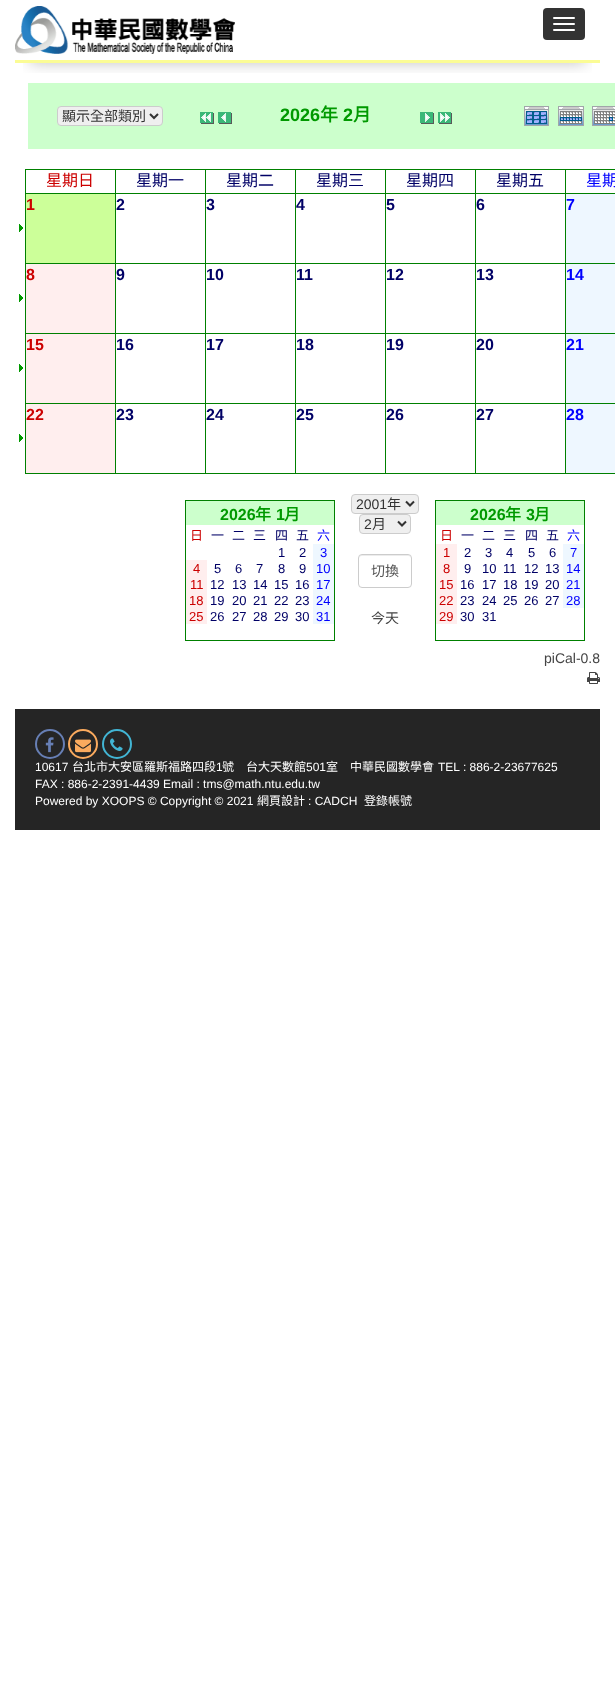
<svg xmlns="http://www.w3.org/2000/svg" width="615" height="1683">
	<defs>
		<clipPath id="clip1"><rect x="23" y="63" width="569" height="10" /></clipPath>
	</defs>
	<rect width="100%" height="100%" fill="#FFFFFF" />
	<rect x="28" y="83" width="587" height="66" fill="#CCFFCC" />
	<g clip-path="url(#clip1)">
		<rect x="30" y="30" width="555" height="33" fill="#000000" fill-opacity="0.24" filter="blur(7.5px)" />
	</g>
	<rect x="15" y="60" width="585" height="3" fill="#FBFC95" />
	<image x="15" y="6" width="220" height="48" href="assets/img1.png" />
	<rect x="543" y="8" width="42" height="32" rx="4" fill="#333333" />
	<rect x="553" y="17" width="22" height="2" rx="1" fill="#FFFFFF" />
	<rect x="553" y="23" width="22" height="2" rx="1" fill="#FFFFFF" />
	<rect x="553" y="29" width="22" height="2" rx="1" fill="#FFFFFF" />
	<rect x="57.5" y="106.5" width="105" height="19" rx="3.5" fill="#EFEFEF" stroke="#CCCCCC" />
	<path d="M150 114L154 118L158 114" fill="none" stroke="#333333" stroke-width="2" />
	<text x="62" y="121" font-family="Noto Sans CJK TC" font-size="14" fill="#333333">顯示全部類別</text>
	<image x="200" y="112" width="14" height="12" href="assets/img2.png" />
	<image x="218" y="112" width="14" height="12" href="assets/img3.png" />
	<text x="280" y="121" font-family="Liberation Sans" font-size="18" font-weight="700" fill="#009900">2026</text>
	<text x="320" y="121" font-family="Noto Sans CJK TC" font-size="18" font-weight="700" fill="#009900">年</text>
	<text x="343" y="121" font-family="Liberation Sans" font-size="18" font-weight="700" fill="#009900">2</text>
	<text x="353" y="121" font-family="Noto Sans CJK TC" font-size="18" font-weight="700" fill="#009900">月</text>
	<image x="420" y="112" width="14" height="12" href="assets/img4.png" />
	<image x="438" y="112" width="14" height="12" href="assets/img5.png" />
	<image x="524" y="106" width="25" height="20" href="assets/img6.png" />
	<image x="558" y="106" width="26" height="20" href="assets/img7.png" />
	<image x="592" y="106" width="23" height="20" href="assets/img8.png" />
	<rect x="565" y="169" width="50" height="1" fill="#008000" />
	<rect x="565" y="193" width="50" height="1" fill="#008000" />
	<rect x="565" y="263" width="50" height="1" fill="#008000" />
	<rect x="565" y="333" width="50" height="1" fill="#008000" />
	<rect x="565" y="403" width="50" height="1" fill="#008000" />
	<rect x="565" y="473" width="50" height="1" fill="#008000" />
	<rect x="565" y="403" width="1" height="71" fill="#008000" />
	<rect x="475" y="403" width="91" height="1" fill="#008000" />
	<rect x="565" y="333" width="1" height="71" fill="#008000" />
	<rect x="475" y="333" width="91" height="1" fill="#008000" />
	<rect x="565" y="263" width="1" height="71" fill="#008000" />
	<rect x="475" y="263" width="91" height="1" fill="#008000" />
	<rect x="565" y="193" width="1" height="71" fill="#008000" />
	<rect x="475" y="193" width="91" height="1" fill="#008000" />
	<rect x="565" y="169" width="1" height="25" fill="#008000" />
	<rect x="475" y="169" width="91" height="1" fill="#008000" />
	<rect x="475" y="473" width="91" height="1" fill="#008000" />
	<rect x="475" y="403" width="1" height="71" fill="#008000" />
	<rect x="385" y="403" width="91" height="1" fill="#008000" />
	<rect x="475" y="333" width="1" height="71" fill="#008000" />
	<rect x="385" y="333" width="91" height="1" fill="#008000" />
	<rect x="475" y="263" width="1" height="71" fill="#008000" />
	<rect x="385" y="263" width="91" height="1" fill="#008000" />
	<rect x="475" y="193" width="1" height="71" fill="#008000" />
	<rect x="385" y="193" width="91" height="1" fill="#008000" />
	<rect x="475" y="169" width="1" height="25" fill="#008000" />
	<rect x="385" y="169" width="91" height="1" fill="#008000" />
	<rect x="385" y="473" width="91" height="1" fill="#008000" />
	<rect x="385" y="403" width="1" height="71" fill="#008000" />
	<rect x="295" y="403" width="91" height="1" fill="#008000" />
	<rect x="385" y="333" width="1" height="71" fill="#008000" />
	<rect x="295" y="333" width="91" height="1" fill="#008000" />
	<rect x="385" y="263" width="1" height="71" fill="#008000" />
	<rect x="295" y="263" width="91" height="1" fill="#008000" />
	<rect x="385" y="193" width="1" height="71" fill="#008000" />
	<rect x="295" y="193" width="91" height="1" fill="#008000" />
	<rect x="385" y="169" width="1" height="25" fill="#008000" />
	<rect x="295" y="169" width="91" height="1" fill="#008000" />
	<rect x="295" y="473" width="91" height="1" fill="#008000" />
	<rect x="295" y="403" width="1" height="71" fill="#008000" />
	<rect x="205" y="403" width="91" height="1" fill="#008000" />
	<rect x="295" y="333" width="1" height="71" fill="#008000" />
	<rect x="205" y="333" width="91" height="1" fill="#008000" />
	<rect x="295" y="263" width="1" height="71" fill="#008000" />
	<rect x="205" y="263" width="91" height="1" fill="#008000" />
	<rect x="295" y="193" width="1" height="71" fill="#008000" />
	<rect x="205" y="193" width="91" height="1" fill="#008000" />
	<rect x="295" y="169" width="1" height="25" fill="#008000" />
	<rect x="205" y="169" width="91" height="1" fill="#008000" />
	<rect x="205" y="473" width="91" height="1" fill="#008000" />
	<rect x="205" y="403" width="1" height="71" fill="#008000" />
	<rect x="115" y="403" width="91" height="1" fill="#008000" />
	<rect x="205" y="333" width="1" height="71" fill="#008000" />
	<rect x="115" y="333" width="91" height="1" fill="#008000" />
	<rect x="205" y="263" width="1" height="71" fill="#008000" />
	<rect x="115" y="263" width="91" height="1" fill="#008000" />
	<rect x="205" y="193" width="1" height="71" fill="#008000" />
	<rect x="115" y="193" width="91" height="1" fill="#008000" />
	<rect x="205" y="169" width="1" height="25" fill="#008000" />
	<rect x="115" y="169" width="91" height="1" fill="#008000" />
	<rect x="115" y="473" width="91" height="1" fill="#008000" />
	<rect x="115" y="403" width="1" height="71" fill="#008000" />
	<rect x="25" y="403" width="91" height="1" fill="#008000" />
	<rect x="115" y="333" width="1" height="71" fill="#008000" />
	<rect x="25" y="333" width="91" height="1" fill="#008000" />
	<rect x="115" y="263" width="1" height="71" fill="#008000" />
	<rect x="25" y="263" width="91" height="1" fill="#008000" />
	<rect x="115" y="193" width="1" height="71" fill="#008000" />
	<rect x="25" y="193" width="91" height="1" fill="#008000" />
	<rect x="115" y="169" width="1" height="25" fill="#008000" />
	<rect x="25" y="169" width="91" height="1" fill="#008000" />
	<rect x="25" y="473" width="91" height="1" fill="#008000" />
	<rect x="25" y="403" width="1" height="71" fill="#008000" />
	<rect x="25" y="333" width="1" height="71" fill="#008000" />
	<rect x="25" y="263" width="1" height="71" fill="#008000" />
	<rect x="25" y="193" width="1" height="71" fill="#008000" />
	<rect x="25" y="169" width="1" height="25" fill="#008000" />
	<text x="46" y="186" font-family="Noto Sans CJK TC" font-size="16" fill="#CC0000">星期日</text>
	<g font-family="Noto Sans CJK TC" font-size="16" fill="#000066">
		<text x="136" y="186">星期一</text>
		<text x="226" y="186">星期二</text>
		<text x="316" y="186">星期三</text>
		<text x="406" y="186">星期四</text>
		<text x="496" y="186">星期五</text>
	</g>
	<text x="586" y="186" font-family="Noto Sans CJK TC" font-size="16" fill="#0000FF">星期</text>
	<rect x="26" y="194" width="89" height="69" fill="#CCFF99" />
	<text x="26" y="210" font-family="Liberation Sans" font-size="16" font-weight="700" fill="#CC0000">1</text>
	<g font-family="Liberation Sans" font-size="16" font-weight="700" fill="#000066">
		<text x="116" y="210">2</text>
		<text x="206" y="210">3</text>
		<text x="296" y="210">4</text>
		<text x="386" y="210">5</text>
		<text x="476" y="210">6</text>
	</g>
	<rect x="566" y="194" width="49" height="69" fill="#EEF7FF" />
	<text x="566" y="210" font-family="Liberation Sans" font-size="16" font-weight="700" fill="#0000FF">7</text>
	<image x="19" y="224" width="4" height="8" href="assets/img9.png" />
	<rect x="26" y="264" width="89" height="69" fill="#FFEEEE" />
	<text x="26" y="280" font-family="Liberation Sans" font-size="16" font-weight="700" fill="#CC0000">8</text>
	<g font-family="Liberation Sans" font-size="16" font-weight="700" fill="#000066">
		<text x="116" y="280">9</text>
		<text x="206" y="280">10</text>
		<text x="296" y="280">11</text>
		<text x="386" y="280">12</text>
		<text x="476" y="280">13</text>
	</g>
	<rect x="566" y="264" width="49" height="69" fill="#EEF7FF" />
	<text x="566" y="280" font-family="Liberation Sans" font-size="16" font-weight="700" fill="#0000FF">14</text>
	<image x="19" y="294" width="4" height="8" href="assets/img9.png" />
	<rect x="26" y="334" width="89" height="69" fill="#FFEEEE" />
	<text x="26" y="350" font-family="Liberation Sans" font-size="16" font-weight="700" fill="#CC0000">15</text>
	<g font-family="Liberation Sans" font-size="16" font-weight="700" fill="#000066">
		<text x="116" y="350">16</text>
		<text x="206" y="350">17</text>
		<text x="296" y="350">18</text>
		<text x="386" y="350">19</text>
		<text x="476" y="350">20</text>
	</g>
	<rect x="566" y="334" width="49" height="69" fill="#EEF7FF" />
	<text x="566" y="350" font-family="Liberation Sans" font-size="16" font-weight="700" fill="#0000FF">21</text>
	<image x="19" y="364" width="4" height="8" href="assets/img9.png" />
	<rect x="26" y="404" width="89" height="69" fill="#FFEEEE" />
	<text x="26" y="420" font-family="Liberation Sans" font-size="16" font-weight="700" fill="#CC0000">22</text>
	<g font-family="Liberation Sans" font-size="16" font-weight="700" fill="#000066">
		<text x="116" y="420">23</text>
		<text x="206" y="420">24</text>
		<text x="296" y="420">25</text>
		<text x="386" y="420">26</text>
		<text x="476" y="420">27</text>
	</g>
	<rect x="566" y="404" width="49" height="69" fill="#EEF7FF" />
	<text x="566" y="420" font-family="Liberation Sans" font-size="16" font-weight="700" fill="#0000FF">28</text>
	<image x="19" y="434" width="4" height="8" href="assets/img9.png" />
	<rect x="185" y="500" width="150" height="1" fill="#008000" />
	<rect x="334" y="500" width="1" height="141" fill="#008000" />
	<rect x="185" y="640" width="150" height="1" fill="#008000" />
	<rect x="185" y="500" width="1" height="141" fill="#008000" />
	<rect x="186" y="501" width="148" height="24" fill="#CCFFCC" />
	<text x="220" y="520" font-family="Liberation Sans" font-size="16" font-weight="700" fill="#009900">2026</text>
	<text x="255" y="520" font-family="Noto Sans CJK TC" font-size="16" font-weight="700" fill="#009900">年</text>
	<text x="276" y="520" font-family="Liberation Sans" font-size="16" font-weight="700" fill="#009900">1</text>
	<text x="284" y="520" font-family="Noto Sans CJK TC" font-size="16" font-weight="700" fill="#009900">月</text>
	<text x="190" y="540" font-family="Noto Sans CJK TC" font-size="13" fill="#CC0000">日</text>
	<g font-family="Noto Sans CJK TC" font-size="13" fill="#000066">
		<text x="211" y="540">一</text>
		<text x="232" y="540">二</text>
		<text x="253" y="540">三</text>
		<text x="275" y="540">四</text>
		<text x="296" y="540">五</text>
	</g>
	<text x="317" y="540" font-family="Noto Sans CJK TC" font-size="13" fill="#0000FF">六</text>
	<g font-family="Liberation Sans" font-size="13" fill="#000066">
		<text x="278" y="557">1</text>
		<text x="299" y="557">2</text>
	</g>
	<rect x="313" y="544" width="21" height="80" fill="#EEF7FF" />
	<text x="320" y="557" font-family="Liberation Sans" font-size="13" fill="#0000FF">3</text>
	<rect x="186" y="560" width="21" height="64" fill="#FFEEEE" />
	<text x="193" y="573" font-family="Liberation Sans" font-size="13" fill="#CC0000">4</text>
	<g font-family="Liberation Sans" font-size="13" fill="#000066">
		<text x="214" y="573">5</text>
		<text x="235" y="573">6</text>
		<text x="256" y="573">7</text>
		<text x="278" y="573">8</text>
		<text x="299" y="573">9</text>
	</g>
	<text x="316" y="573" font-family="Liberation Sans" font-size="13" fill="#0000FF">10</text>
	<text x="190" y="589" font-family="Liberation Sans" font-size="13" fill="#CC0000">11</text>
	<g font-family="Liberation Sans" font-size="13" fill="#000066">
		<text x="210" y="589">12</text>
		<text x="232" y="589">13</text>
		<text x="253" y="589">14</text>
		<text x="274" y="589">15</text>
		<text x="295" y="589">16</text>
	</g>
	<text x="316" y="589" font-family="Liberation Sans" font-size="13" fill="#0000FF">17</text>
	<text x="189" y="605" font-family="Liberation Sans" font-size="13" fill="#CC0000">18</text>
	<g font-family="Liberation Sans" font-size="13" fill="#000066">
		<text x="210" y="605">19</text>
		<text x="232" y="605">20</text>
		<text x="253" y="605">21</text>
		<text x="274" y="605">22</text>
		<text x="295" y="605">23</text>
	</g>
	<text x="316" y="605" font-family="Liberation Sans" font-size="13" fill="#0000FF">24</text>
	<text x="189" y="621" font-family="Liberation Sans" font-size="13" fill="#CC0000">25</text>
	<g font-family="Liberation Sans" font-size="13" fill="#000066">
		<text x="210" y="621">26</text>
		<text x="232" y="621">27</text>
		<text x="253" y="621">28</text>
		<text x="274" y="621">29</text>
		<text x="295" y="621">30</text>
	</g>
	<text x="316" y="621" font-family="Liberation Sans" font-size="13" fill="#0000FF">31</text>
	<rect x="351.5" y="494.5" width="67" height="19" rx="3.5" fill="#EFEFEF" stroke="#CCCCCC" />
	<path d="M406 501.5L410 505.5L414 501.5" fill="none" stroke="#333333" stroke-width="2" />
	<text x="356" y="509" font-family="Liberation Sans" font-size="14" fill="#333333">2001</text>
	<text x="387" y="509" font-family="Noto Sans CJK TC" font-size="14" fill="#333333">年</text>
	<rect x="359.5" y="514.5" width="51" height="19" rx="3.5" fill="#EFEFEF" stroke="#CCCCCC" />
	<path d="M398 521.5L402 525.5L406 521.5" fill="none" stroke="#333333" stroke-width="2" />
	<text x="364" y="529" font-family="Liberation Sans" font-size="14" fill="#333333">2</text>
	<text x="372" y="529" font-family="Noto Sans CJK TC" font-size="14" fill="#333333">月</text>
	<path d="M362 556H408C410 556 411 557 411 559C411 553 405 555 400 555H370C365 555 359 553 359 559C359 557 360 556 362 556Z" fill="#ECECEC" />
	<rect x="358.5" y="554.5" width="53" height="33" rx="3.5" fill="none" stroke="#CCCCCC" />
	<text x="371" y="576" font-family="Noto Sans CJK TC" font-size="14" fill="#555555">切換</text>
	<text x="371" y="623" font-family="Noto Sans CJK TC" font-size="14" fill="#444444">今天</text>
	<rect x="435" y="500" width="150" height="1" fill="#008000" />
	<rect x="584" y="500" width="1" height="141" fill="#008000" />
	<rect x="435" y="640" width="150" height="1" fill="#008000" />
	<rect x="435" y="500" width="1" height="141" fill="#008000" />
	<rect x="436" y="501" width="148" height="24" fill="#CCFFCC" />
	<text x="470" y="520" font-family="Liberation Sans" font-size="16" font-weight="700" fill="#009900">2026</text>
	<text x="505" y="520" font-family="Noto Sans CJK TC" font-size="16" font-weight="700" fill="#009900">年</text>
	<text x="526" y="520" font-family="Liberation Sans" font-size="16" font-weight="700" fill="#009900">3</text>
	<text x="534" y="520" font-family="Noto Sans CJK TC" font-size="16" font-weight="700" fill="#009900">月</text>
	<text x="440" y="540" font-family="Noto Sans CJK TC" font-size="13" fill="#CC0000">日</text>
	<g font-family="Noto Sans CJK TC" font-size="13" fill="#000066">
		<text x="461" y="540">一</text>
		<text x="482" y="540">二</text>
		<text x="503" y="540">三</text>
		<text x="525" y="540">四</text>
		<text x="546" y="540">五</text>
	</g>
	<text x="567" y="540" font-family="Noto Sans CJK TC" font-size="13" fill="#0000FF">六</text>
	<rect x="436" y="544" width="21" height="80" fill="#FFEEEE" />
	<text x="443" y="557" font-family="Liberation Sans" font-size="13" fill="#CC0000">1</text>
	<g font-family="Liberation Sans" font-size="13" fill="#000066">
		<text x="464" y="557">2</text>
		<text x="485" y="557">3</text>
		<text x="506" y="557">4</text>
		<text x="528" y="557">5</text>
		<text x="549" y="557">6</text>
	</g>
	<rect x="563" y="544" width="21" height="64" fill="#EEF7FF" />
	<text x="570" y="557" font-family="Liberation Sans" font-size="13" fill="#0000FF">7</text>
	<text x="443" y="573" font-family="Liberation Sans" font-size="13" fill="#CC0000">8</text>
	<g font-family="Liberation Sans" font-size="13" fill="#000066">
		<text x="464" y="573">9</text>
		<text x="482" y="573">10</text>
		<text x="503" y="573">11</text>
		<text x="524" y="573">12</text>
		<text x="545" y="573">13</text>
	</g>
	<text x="566" y="573" font-family="Liberation Sans" font-size="13" fill="#0000FF">14</text>
	<text x="439" y="589" font-family="Liberation Sans" font-size="13" fill="#CC0000">15</text>
	<g font-family="Liberation Sans" font-size="13" fill="#000066">
		<text x="460" y="589">16</text>
		<text x="482" y="589">17</text>
		<text x="503" y="589">18</text>
		<text x="524" y="589">19</text>
		<text x="545" y="589">20</text>
	</g>
	<text x="566" y="589" font-family="Liberation Sans" font-size="13" fill="#0000FF">21</text>
	<text x="439" y="605" font-family="Liberation Sans" font-size="13" fill="#CC0000">22</text>
	<g font-family="Liberation Sans" font-size="13" fill="#000066">
		<text x="460" y="605">23</text>
		<text x="482" y="605">24</text>
		<text x="503" y="605">25</text>
		<text x="524" y="605">26</text>
		<text x="545" y="605">27</text>
	</g>
	<text x="566" y="605" font-family="Liberation Sans" font-size="13" fill="#0000FF">28</text>
	<text x="439" y="621" font-family="Liberation Sans" font-size="13" fill="#CC0000">29</text>
	<g font-family="Liberation Sans" font-size="13" fill="#000066">
		<text x="460" y="621">30</text>
		<text x="482" y="621">31</text>
	</g>
	<text x="544" y="663" font-family="Liberation Sans" font-size="14" fill="#444444">piCal-0.8</text>
	<image x="587" y="672" width="13" height="12" href="assets/img10.png" />
	<rect x="15" y="709" width="585" height="121" fill="#252525" />
	<circle cx="50" cy="744" r="14" fill="none" stroke="#677FB5" stroke-width="2" />
	<image x="45" y="737" width="9" height="16" href="assets/img11.png" />
	<circle cx="83" cy="744" r="14" fill="none" stroke="#FAAA5E" stroke-width="2" />
	<image x="75" y="739" width="16" height="14" href="assets/img12.png" />
	<circle cx="117" cy="744" r="14" fill="none" stroke="#42B5D4" stroke-width="2" />
	<image x="110" y="738" width="13" height="13" href="assets/img13.png" />
	<text x="35" y="771" font-family="Liberation Sans" font-size="12" fill="#FFFFFF">10617</text>
	<text x="72" y="771" font-family="Noto Sans CJK TC" font-size="12" fill="#FFFFFF">台北市大安區羅斯福路四段</text>
	<text x="216" y="771" font-family="Liberation Sans" font-size="12" fill="#FFFFFF">1</text>
	<text x="222" y="771" font-family="Noto Sans CJK TC" font-size="12" fill="#FFFFFF">號　台大天數館</text>
	<text x="306" y="771" font-family="Liberation Sans" font-size="12" fill="#FFFFFF">501</text>
	<text x="326" y="771" font-family="Noto Sans CJK TC" font-size="12" fill="#FFFFFF">室　中華民國數學會</text>
	<g font-family="Liberation Sans" font-size="12" fill="#FFFFFF">
		<text x="438" y="771">TEL : 886-2-23677625</text>
		<text x="35" y="788">FAX : 886-2-2391-4439 Email : tms@math.ntu.edu.tw</text>
		<text x="35" y="805">Powered by XOOPS © Copyright © 2021</text>
	</g>
	<text x="257" y="805" font-family="Noto Sans CJK TC" font-size="12" fill="#FFFFFF">網頁設計</text>
	<text x="308" y="805" font-family="Liberation Sans" font-size="12" fill="#FFFFFF">: CADCH</text>
	<text x="364" y="805" font-family="Noto Sans CJK TC" font-size="12" fill="#FFFFFF">登錄帳號</text>
</svg>
